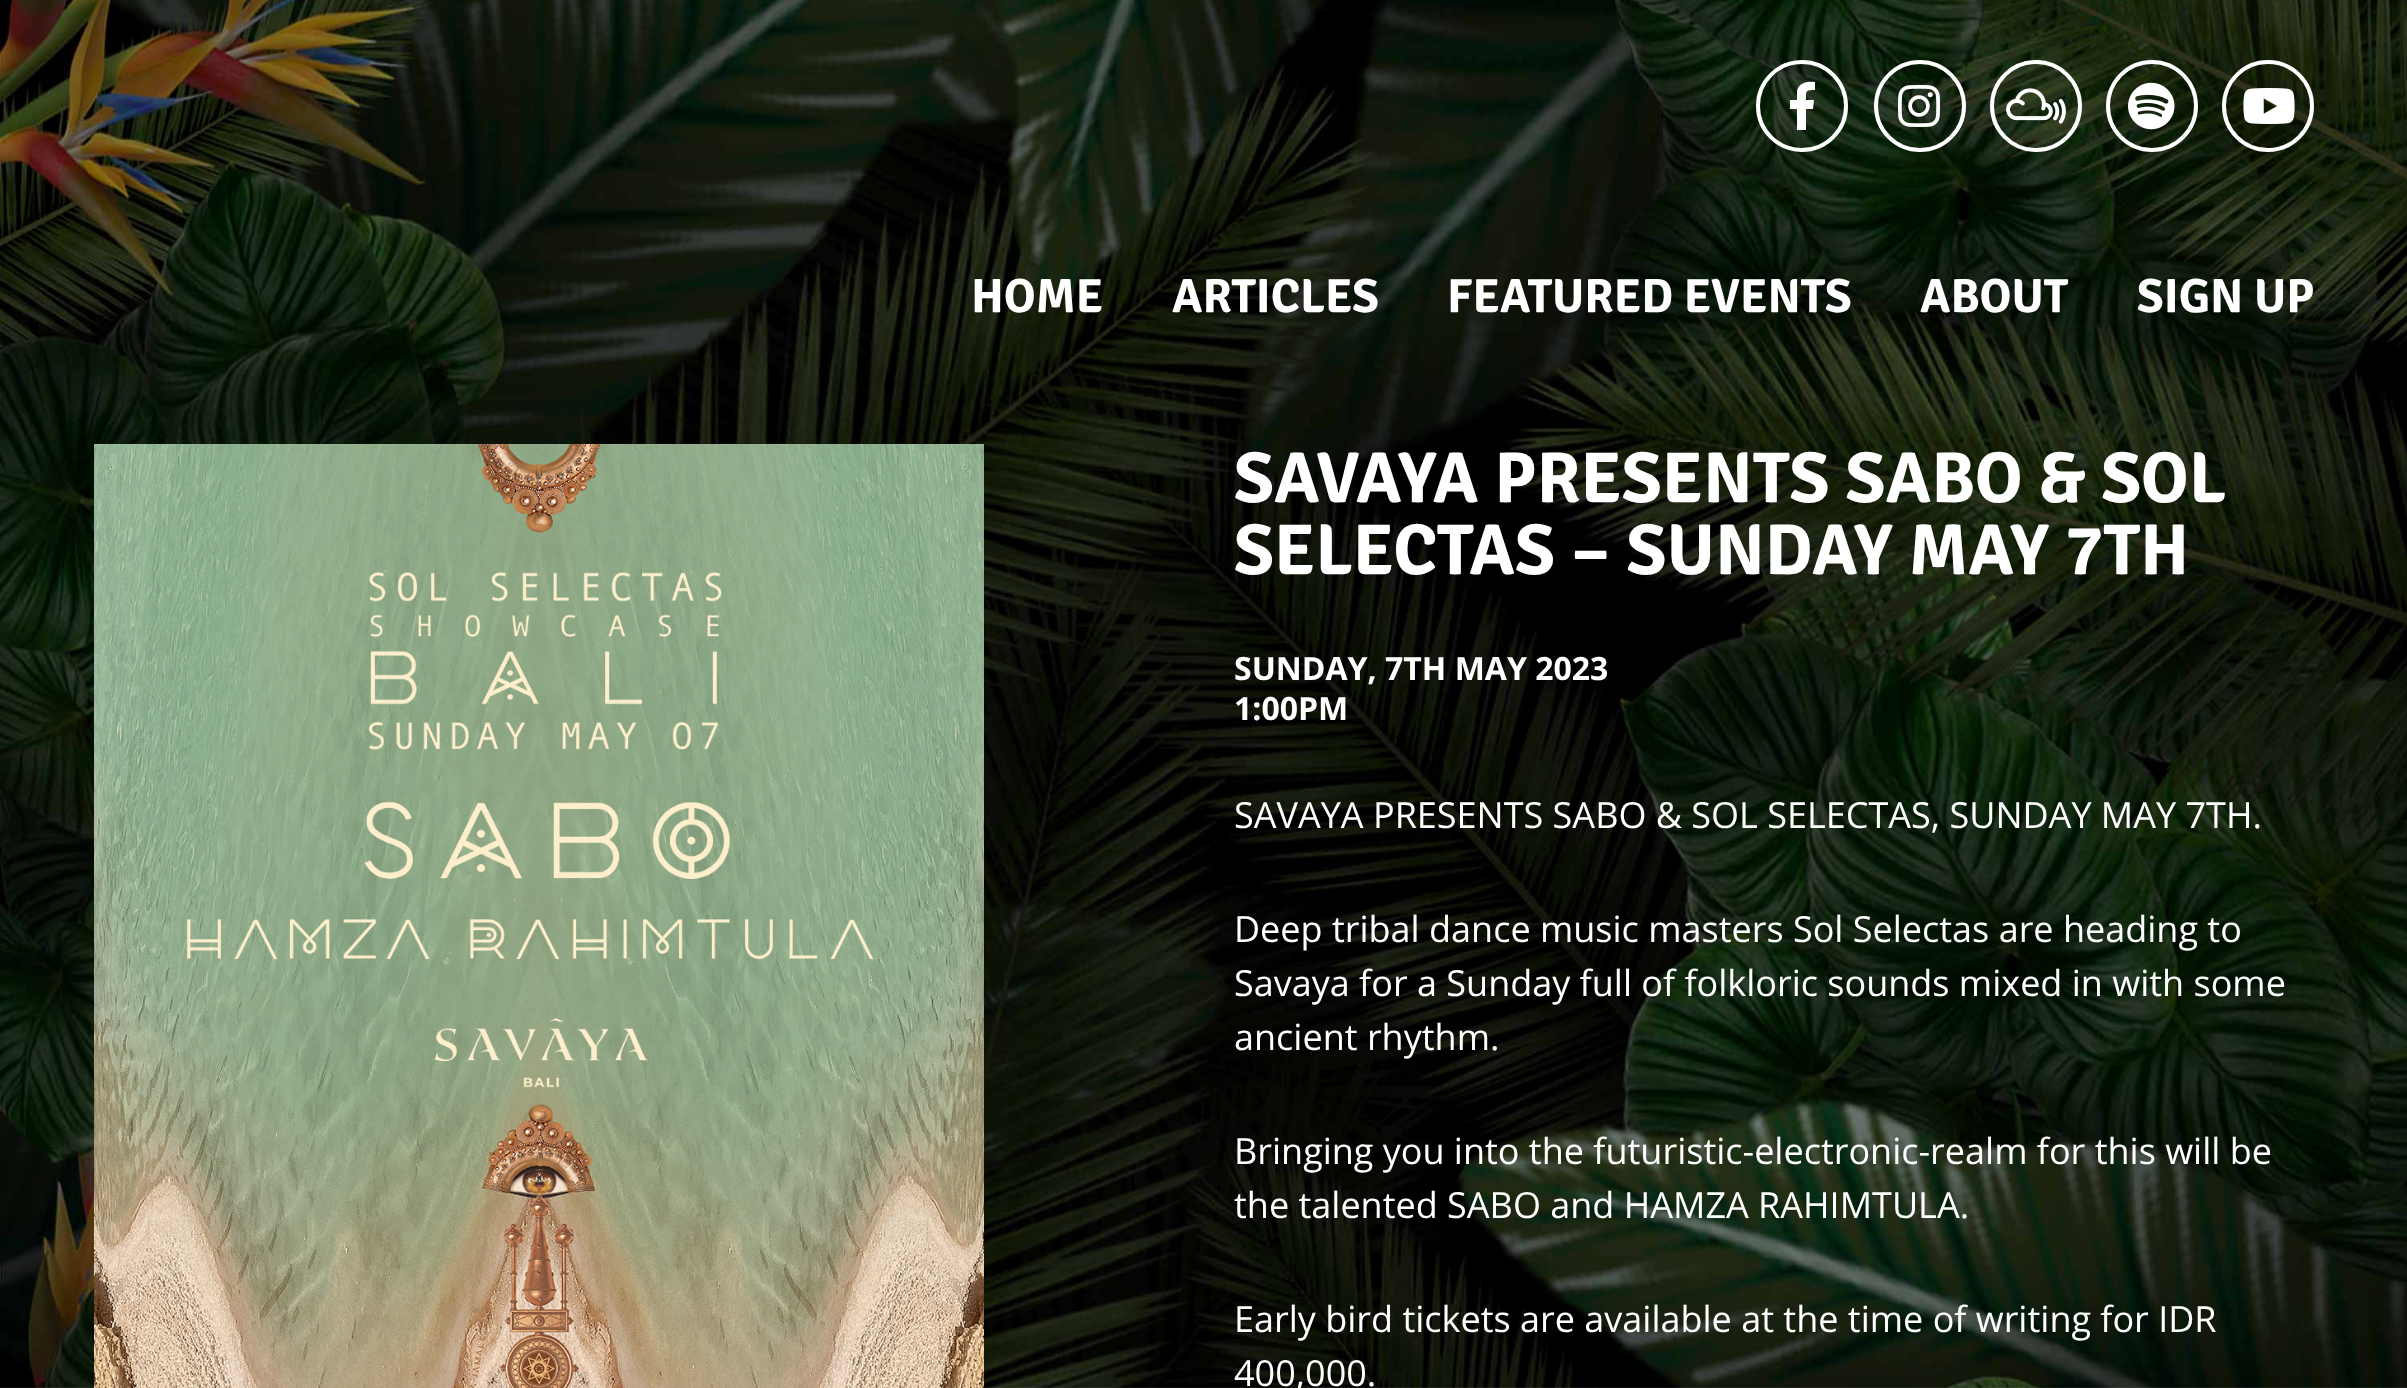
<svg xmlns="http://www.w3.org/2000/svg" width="2407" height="1388">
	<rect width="100%" height="100%" fill="#FFFFFF" />
	<image x="0" y="0" width="2407" height="1388" href="assets/img1.png" />
	<circle cx="1802" cy="106" r="44" fill="none" stroke="#FFFFFF" stroke-width="4" />
	<path d="M1797 130V109H1790V100H1797V91C1799 82 1808 81 1815 82V90C1805 90 1806 91 1806 100H1814L1813 109H1806V130Z" fill="#FFFFFF" />
	<circle cx="1920" cy="106" r="44" fill="none" stroke="#FFFFFF" stroke-width="4" />
	<image x="1898" y="85" width="42" height="42" href="assets/img2.png" />
	<circle cx="2036" cy="106" r="44" fill="none" stroke="#FFFFFF" stroke-width="4" />
	<image x="2006" y="88" width="60" height="36" href="assets/img3.png" />
	<circle cx="2152" cy="106" r="44" fill="none" stroke="#FFFFFF" stroke-width="4" />
	<image x="2128" y="82" width="47" height="48" href="assets/img4.png" />
	<circle cx="2268" cy="106" r="44" fill="none" stroke="#FFFFFF" stroke-width="4" />
	<image x="2243" y="88" width="52" height="36" href="assets/img5.png" />
	<g font-family="Signika Negative" font-size="48" font-weight="300" fill="#FFFFFF">
		<text x="971" y="312">HOME</text>
		<text x="1172" y="312">ARTICLES</text>
		<text x="1447" y="312">FEATURED EVENTS</text>
		<text x="1920" y="312">ABOUT</text>
		<text x="2137" y="312">SIGN UP</text>
	</g>
	<image x="94" y="444" width="890" height="944" href="assets/img6.png" />
	<g font-family="Signika Negative" font-size="72" font-weight="300" fill="#FFFFFF">
		<text x="1234" y="502">SAVAYA PRESENTS SABO &amp; SOL</text>
		<text x="1234" y="574">SELECTAS – SUNDAY MAY 7TH</text>
	</g>
	<g font-family="Open Sans" font-size="32" font-weight="700" fill="#FFFFFF">
		<text x="1234" y="680">SUNDAY, 7TH MAY 2023</text>
		<text x="1234" y="720">1:00PM</text>
	</g>
	<g font-family="Open Sans" font-size="36" fill="#FFFFFF">
		<text x="1234" y="828">SAVAYA PRESENTS SABO &amp; SOL SELECTAS, SUNDAY MAY 7TH.</text>
		<text x="1234" y="942">Deep tribal dance music masters Sol Selectas are heading to</text>
		<text x="1234" y="996">Savaya for a Sunday full of folkloric sounds mixed in with some</text>
		<text x="1234" y="1050">ancient rhythm.</text>
		<text x="1234" y="1164">Bringing you into the futuristic-electronic-realm for this will be</text>
		<text x="1234" y="1218">the talented SABO and HAMZA RAHIMTULA.</text>
		<text x="1234" y="1332">Early bird tickets are available at the time of writing for IDR</text>
		<text x="1234" y="1386">400,000.</text>
	</g>
</svg>
